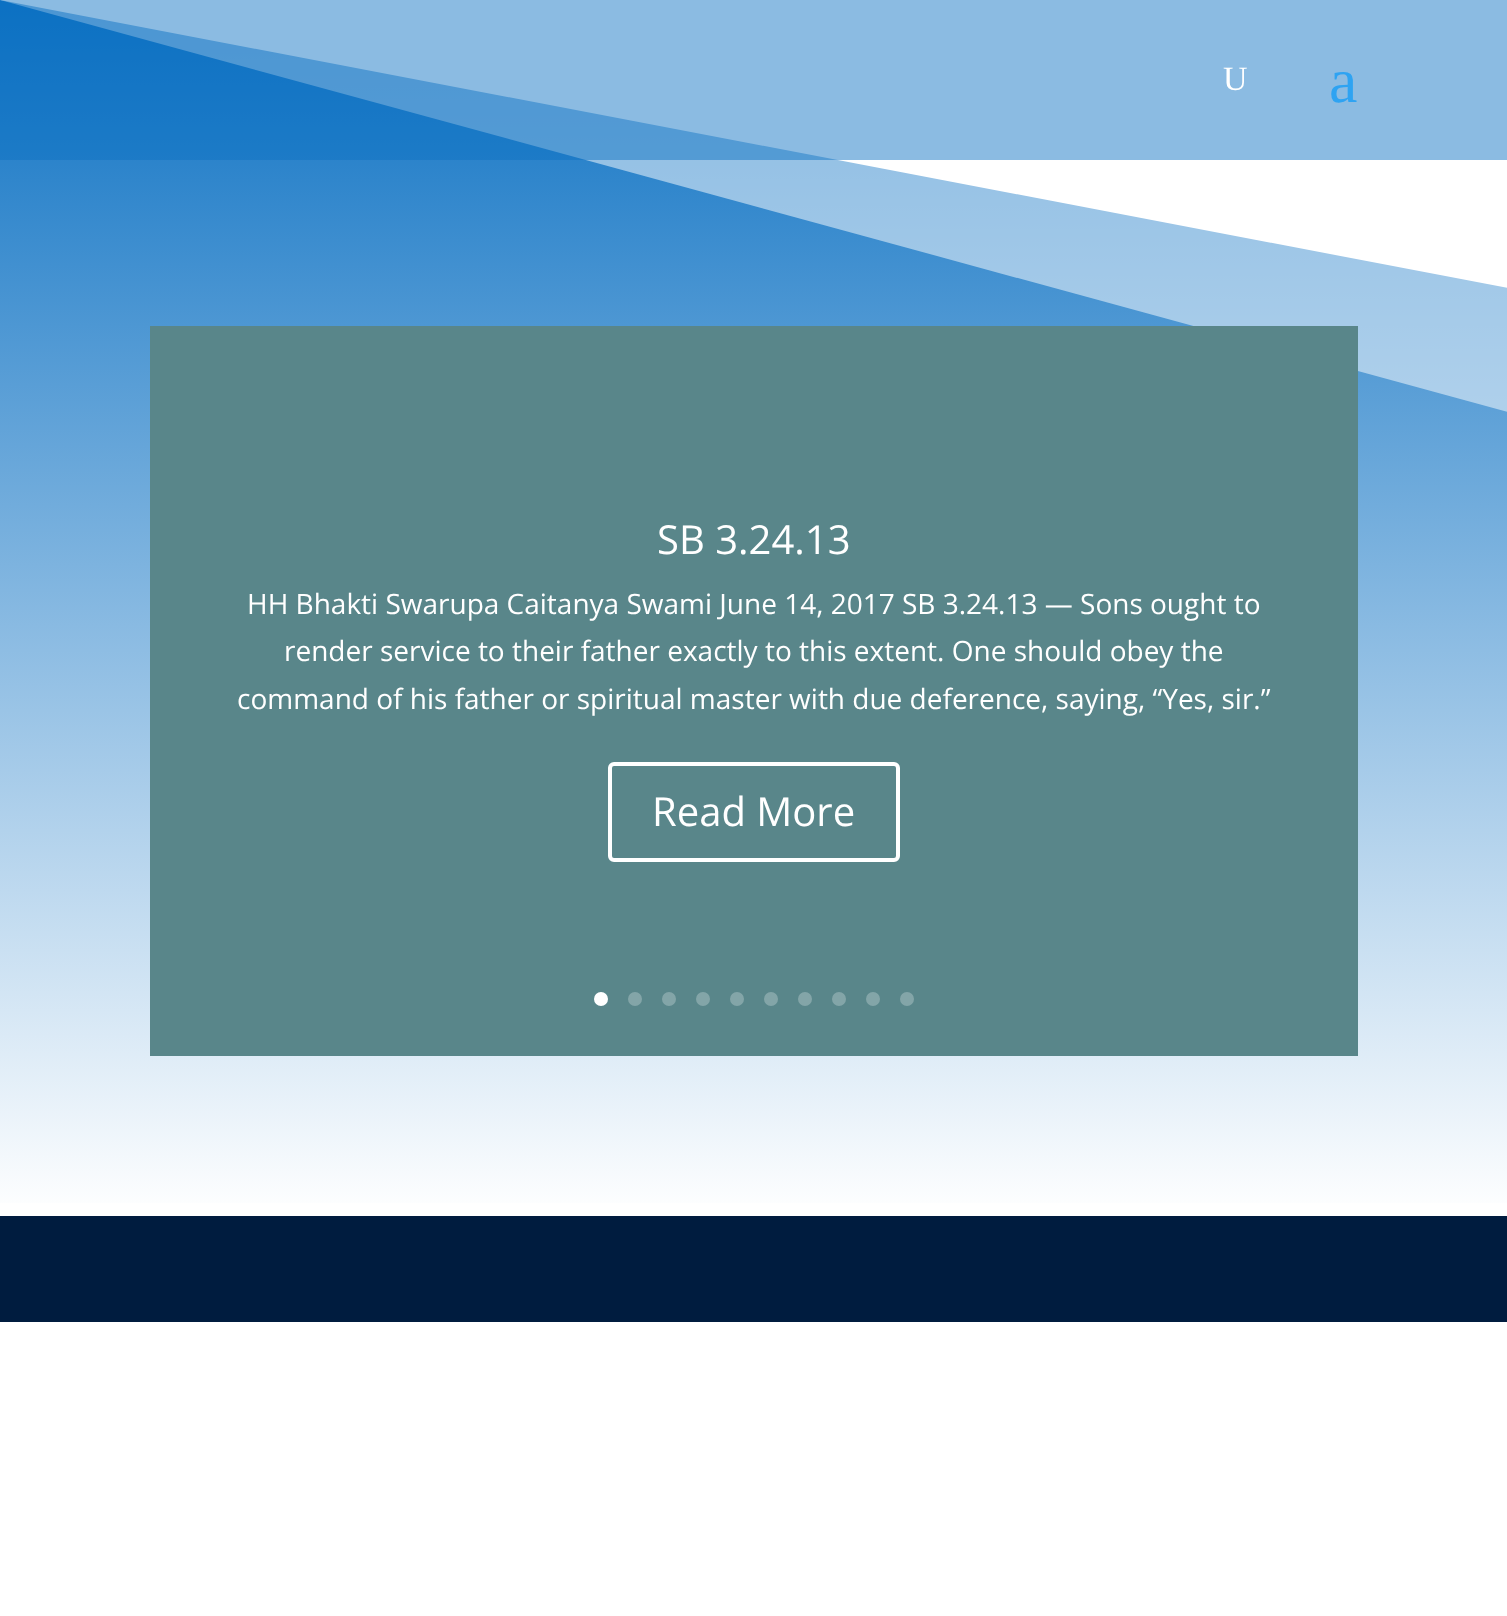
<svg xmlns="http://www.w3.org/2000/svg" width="1507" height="1616">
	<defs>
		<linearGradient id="g1" gradientUnits="userSpaceOnUse" x1="754" y1="0" x2="754" y2="1216"><stop offset="0" stop-color="#0C71C3" /><stop offset="1" stop-color="#FFFFFF" /></linearGradient>
	</defs>
	<rect width="100%" height="100%" fill="#FFFFFF" />
	<rect x="0" y="0" width="1507" height="1203" fill="url(#g1)" />
	<path d="M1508 412V0H0Z" fill="#FFFFFF" fill-opacity="0.5" />
	<path d="M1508 288V0H0Z" fill="#FFFFFF" />
	<rect x="0" y="0" width="1507" height="160" fill="#0C71C3" fill-opacity="0.48" />
	<text x="1223" y="90" font-family="Liberation Serif" font-size="34" fill="#FFFFFF">U</text>
	<text x="1329" y="102" font-family="Liberation Serif" font-size="64" fill="#2EA3F2">a</text>
	<rect x="150" y="326" width="1208" height="730" fill="#59868A" />
	<text x="657" y="554" font-family="Open Sans" font-size="40" fill="#FFFFFF">SB 3.24.13</text>
	<g font-family="Open Sans" font-size="28" fill="#FFFFFF">
		<text x="247" y="614">HH Bhakti Swarupa Caitanya Swami June 14, 2017 SB 3.24.13 — Sons ought to</text>
		<text x="284" y="661">render service to their father exactly to this extent. One should obey the</text>
		<text x="237" y="709">command of his father or spiritual master with due deference, saying, “Yes, sir.”</text>
	</g>
	<rect x="610" y="764" width="288" height="96" rx="4" fill="none" stroke="#FFFFFF" stroke-width="4" />
	<text x="652" y="826" font-family="Open Sans" font-size="40" fill="#FFFFFF">Read More</text>
	<circle cx="601" cy="999" r="7" fill="#FFFFFF" />
	<circle cx="635" cy="999" r="7" fill="#83A5A8" />
	<circle cx="669" cy="999" r="7" fill="#83A5A8" />
	<circle cx="703" cy="999" r="7" fill="#83A5A8" />
	<circle cx="737" cy="999" r="7" fill="#83A5A8" />
	<circle cx="771" cy="999" r="7" fill="#83A5A8" />
	<circle cx="805" cy="999" r="7" fill="#83A5A8" />
	<circle cx="839" cy="999" r="7" fill="#83A5A8" />
	<circle cx="873" cy="999" r="7" fill="#83A5A8" />
	<circle cx="907" cy="999" r="7" fill="#83A5A8" />
	<rect x="0" y="1216" width="1507" height="106" fill="#001C3F" />
</svg>
